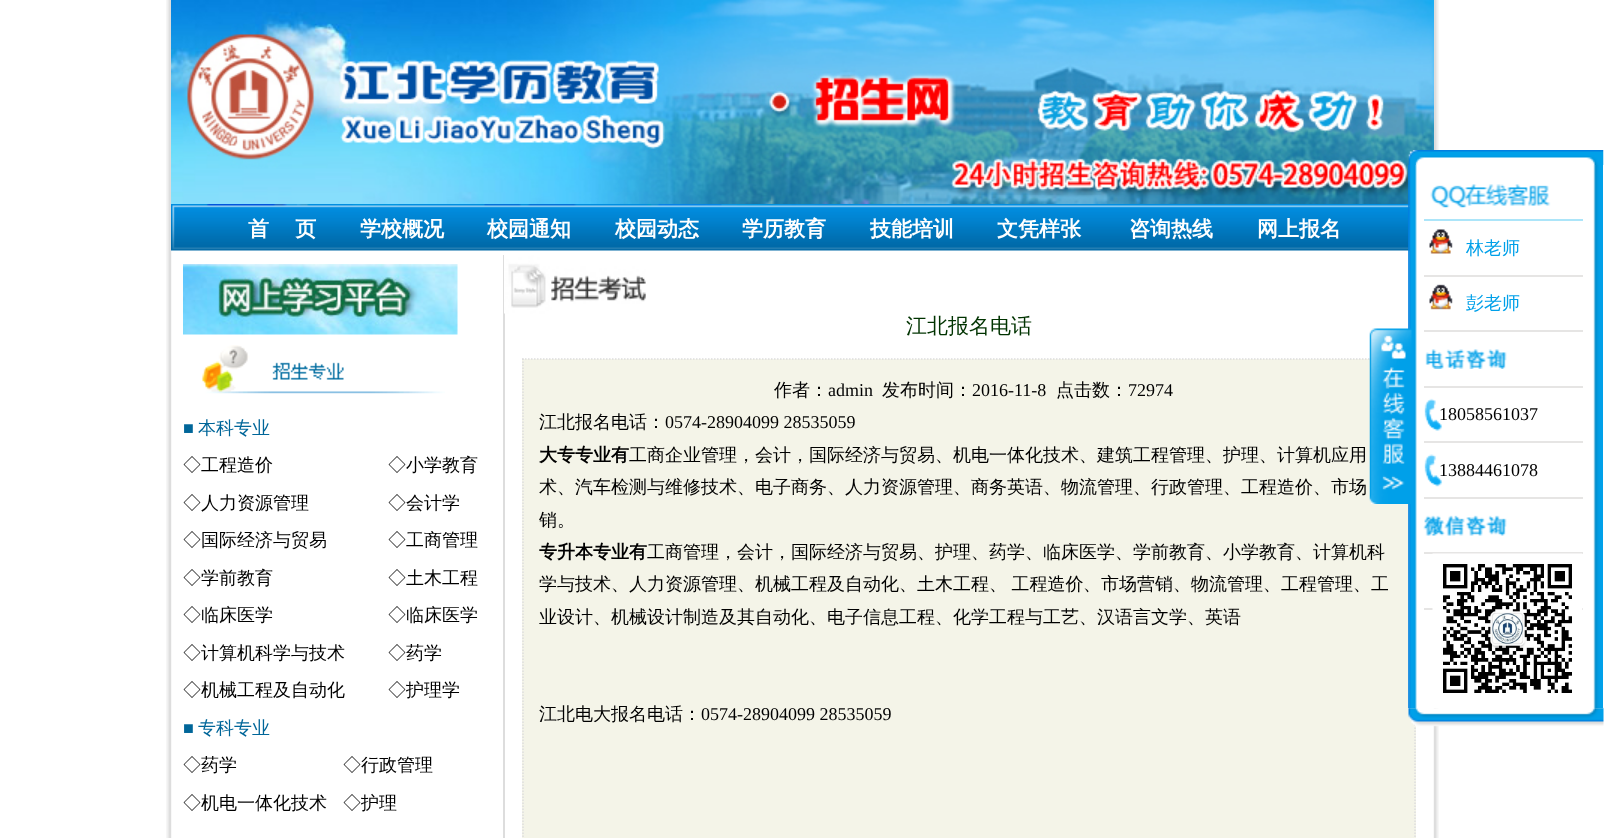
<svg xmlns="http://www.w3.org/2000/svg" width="1604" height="838">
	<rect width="100%" height="100%" fill="#FFFFFF" />
	<image x="166" y="0" width="1273" height="838" href="assets/img1.png" />
	<image x="171" y="0" width="1263" height="204" href="assets/img2.png" />
	<image x="171" y="204" width="1239" height="47" href="assets/img3.png" />
	<g font-family="WenQuanYi Zen Hei" font-size="21" font-weight="700" fill="#FFFFFF">
		<text x="248" y="236" word-spacing="-1">首 　页</text>
		<text x="360" y="236">学校概况</text>
		<text x="487" y="236">校园通知</text>
		<text x="615" y="236">校园动态</text>
		<text x="742" y="236">学历教育</text>
		<text x="870" y="236">技能培训</text>
		<text x="997" y="236">文凭样张</text>
		<text x="1129" y="236">咨询热线</text>
		<text x="1257" y="236">网上报名</text>
	</g>
	<rect x="503" y="255" width="2" height="583" fill="#DDDDDD" />
	<image x="183" y="264" width="275" height="71" href="assets/img4.png" />
	<image x="201" y="345" width="244" height="49" href="assets/img5.png" />
	<text x="183" y="434" font-family="Liberation Serif" font-size="18" fill="#006699">■</text>
	<text x="198" y="434" font-family="WenQuanYi Zen Hei" font-size="18" font-weight="500" fill="#006699">本科专业</text>
	<g font-family="WenQuanYi Zen Hei" font-size="18" font-weight="500" fill="#000000">
		<text x="183" y="471">◇工程造价</text>
		<text x="388" y="471">◇小学教育</text>
		<text x="183" y="509">◇人力资源管理</text>
		<text x="388" y="509">◇会计学</text>
		<text x="183" y="546">◇国际经济与贸易</text>
		<text x="388" y="546">◇工商管理</text>
		<text x="183" y="584">◇学前教育</text>
		<text x="388" y="584">◇土木工程</text>
		<text x="183" y="621">◇临床医学</text>
		<text x="388" y="621">◇临床医学</text>
		<text x="183" y="659">◇计算机科学与技术</text>
		<text x="388" y="659">◇药学</text>
		<text x="183" y="696">◇机械工程及自动化</text>
		<text x="388" y="696">◇护理学</text>
	</g>
	<text x="183" y="734" font-family="Liberation Serif" font-size="18" fill="#006699">■</text>
	<text x="198" y="734" font-family="WenQuanYi Zen Hei" font-size="18" font-weight="500" fill="#006699">专科专业</text>
	<g font-family="WenQuanYi Zen Hei" font-size="18" font-weight="500" fill="#000000">
		<text x="183" y="771">◇药学</text>
		<text x="343" y="771">◇行政管理</text>
		<text x="183" y="809">◇机电一体化技术</text>
		<text x="343" y="809">◇护理</text>
	</g>
	<image x="504" y="255" width="142" height="59" href="assets/img6.png" />
	<text x="906" y="333" font-family="WenQuanYi Zen Hei" font-size="21" font-weight="500" fill="#003300">江北报名电话</text>
	<rect x="522" y="359" width="894" height="479" fill="#F4F4E8" />
	<path d="M522 359H1416" fill="none" stroke="#DDDDDD" stroke-width="1.5" stroke-dasharray="1.5 1.5" />
	<path d="M1415 358.5V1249.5" fill="none" stroke="#DDDDDD" stroke-width="1.5" stroke-dasharray="1.5 1.5" />
	<path d="M523 358.5V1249.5" fill="none" stroke="#DDDDDD" stroke-width="1.5" stroke-dasharray="1.5 1.5" />
	<text x="774" y="396" font-family="WenQuanYi Zen Hei" font-size="18" font-weight="500" fill="#000000">作者：</text>
	<text x="828" y="396" font-family="Liberation Serif" font-size="18" fill="#000000">admin</text>
	<text x="882" y="396" font-family="WenQuanYi Zen Hei" font-size="18" font-weight="500" fill="#000000">发布时间：</text>
	<text x="972" y="396" font-family="Liberation Serif" font-size="18" fill="#000000">2016-11-8</text>
	<text x="1056" y="396" font-family="WenQuanYi Zen Hei" font-size="18" font-weight="500" fill="#000000">点击数：</text>
	<text x="1128" y="396" font-family="Liberation Serif" font-size="18" fill="#000000">72974</text>
	<text x="539" y="428" font-family="WenQuanYi Zen Hei" font-size="18" font-weight="500" fill="#000000">江北报名电话：</text>
	<text x="665" y="428" font-family="Liberation Serif" font-size="18" fill="#000000">0574-28904099 28535059</text>
	<text x="539" y="461" font-family="WenQuanYi Zen Hei" font-size="18" font-weight="700" fill="#000000">大专专业有</text>
	<g font-family="WenQuanYi Zen Hei" font-size="18" font-weight="500" fill="#000000">
		<text x="629" y="461">工商企业管理，会计，国际经济与贸易、机电一体化技术、建筑工程管理、护理、计算机应用</text>
		<text x="539" y="493">术、汽车检测与维修技术、电子商务、人力资源管理、商务英语、物流管理、行政管理、工程造价、市场</text>
		<text x="539" y="526">销。</text>
	</g>
	<text x="539" y="558" font-family="WenQuanYi Zen Hei" font-size="18" font-weight="700" fill="#000000">专升本专业有</text>
	<g font-family="WenQuanYi Zen Hei" font-size="18" font-weight="500" fill="#000000">
		<text x="647" y="558">工商管理，会计，国际经济与贸易、护理、药学、临床医学、学前教育、小学教育、计算机科</text>
		<text x="539" y="590" word-spacing="-1">学与技术、人力资源管理、机械工程及自动化、土木工程、 工程造价</text>
		<text x="1083" y="590">、市场营销、物流管理、工程管理、工</text>
		<text x="539" y="623">业设计、机械设计制造及其自动化、电子信息工程、化学工程与工艺、汉语言文学、英语</text>
		<text x="539" y="720">江北电大报名电话：</text>
	</g>
	<text x="701" y="720" font-family="Liberation Serif" font-size="18" fill="#000000">0574-28904099 28535059</text>
	<image x="1408" y="707" width="196" height="20" href="assets/img8.png" />
	<image x="1408" y="165" width="195" height="543" href="assets/img10.png" />
	<image x="1369" y="328" width="43" height="176" href="assets/img7.png" />
	<image x="1408" y="150" width="196" height="15" href="assets/img9.png" />
	<rect x="1424" y="219" width="159" height="2" fill="#ACE5F9" />
	<image x="1430" y="184" width="121" height="24" href="assets/img11.png" />
	<rect x="1424" y="275" width="159" height="2" fill="#E6E5E4" />
	<image x="1429" y="229" width="24" height="25" href="assets/img12.png" />
	<text x="1466" y="254" font-family="WenQuanYi Zen Hei" font-size="18" font-weight="500" fill="#00A0E9">林老师</text>
	<rect x="1424" y="330" width="159" height="2" fill="#E6E5E4" />
	<image x="1429" y="284" width="24" height="26" href="assets/img13.png" />
	<text x="1466" y="309" font-family="WenQuanYi Zen Hei" font-size="18" font-weight="500" fill="#00A0E9">彭老师</text>
	<rect x="1424" y="386" width="159" height="2" fill="#E6E5E4" />
	<image x="1425" y="349" width="82" height="20" href="assets/img14.png" />
	<rect x="1424" y="441" width="159" height="2" fill="#E6E5E4" />
	<image x="1424" y="398" width="19" height="33" href="assets/img15.png" />
	<text x="1439" y="420" font-family="Liberation Serif" font-size="18" fill="#000000">18058561037</text>
	<rect x="1424" y="497" width="159" height="2" fill="#E6E5E4" />
	<image x="1424" y="454" width="19" height="33" href="assets/img16.png" />
	<text x="1439" y="476" font-family="Liberation Serif" font-size="18" fill="#000000">13884461078</text>
	<rect x="1424" y="552" width="159" height="2" fill="#E6E5E4" />
	<image x="1423" y="515" width="84" height="21" href="assets/img17.png" />
	<rect x="1424" y="608" width="159" height="2" fill="#E6E5E4" />
	<image x="1432" y="553" width="151" height="140" href="assets/img18.png" />
</svg>
